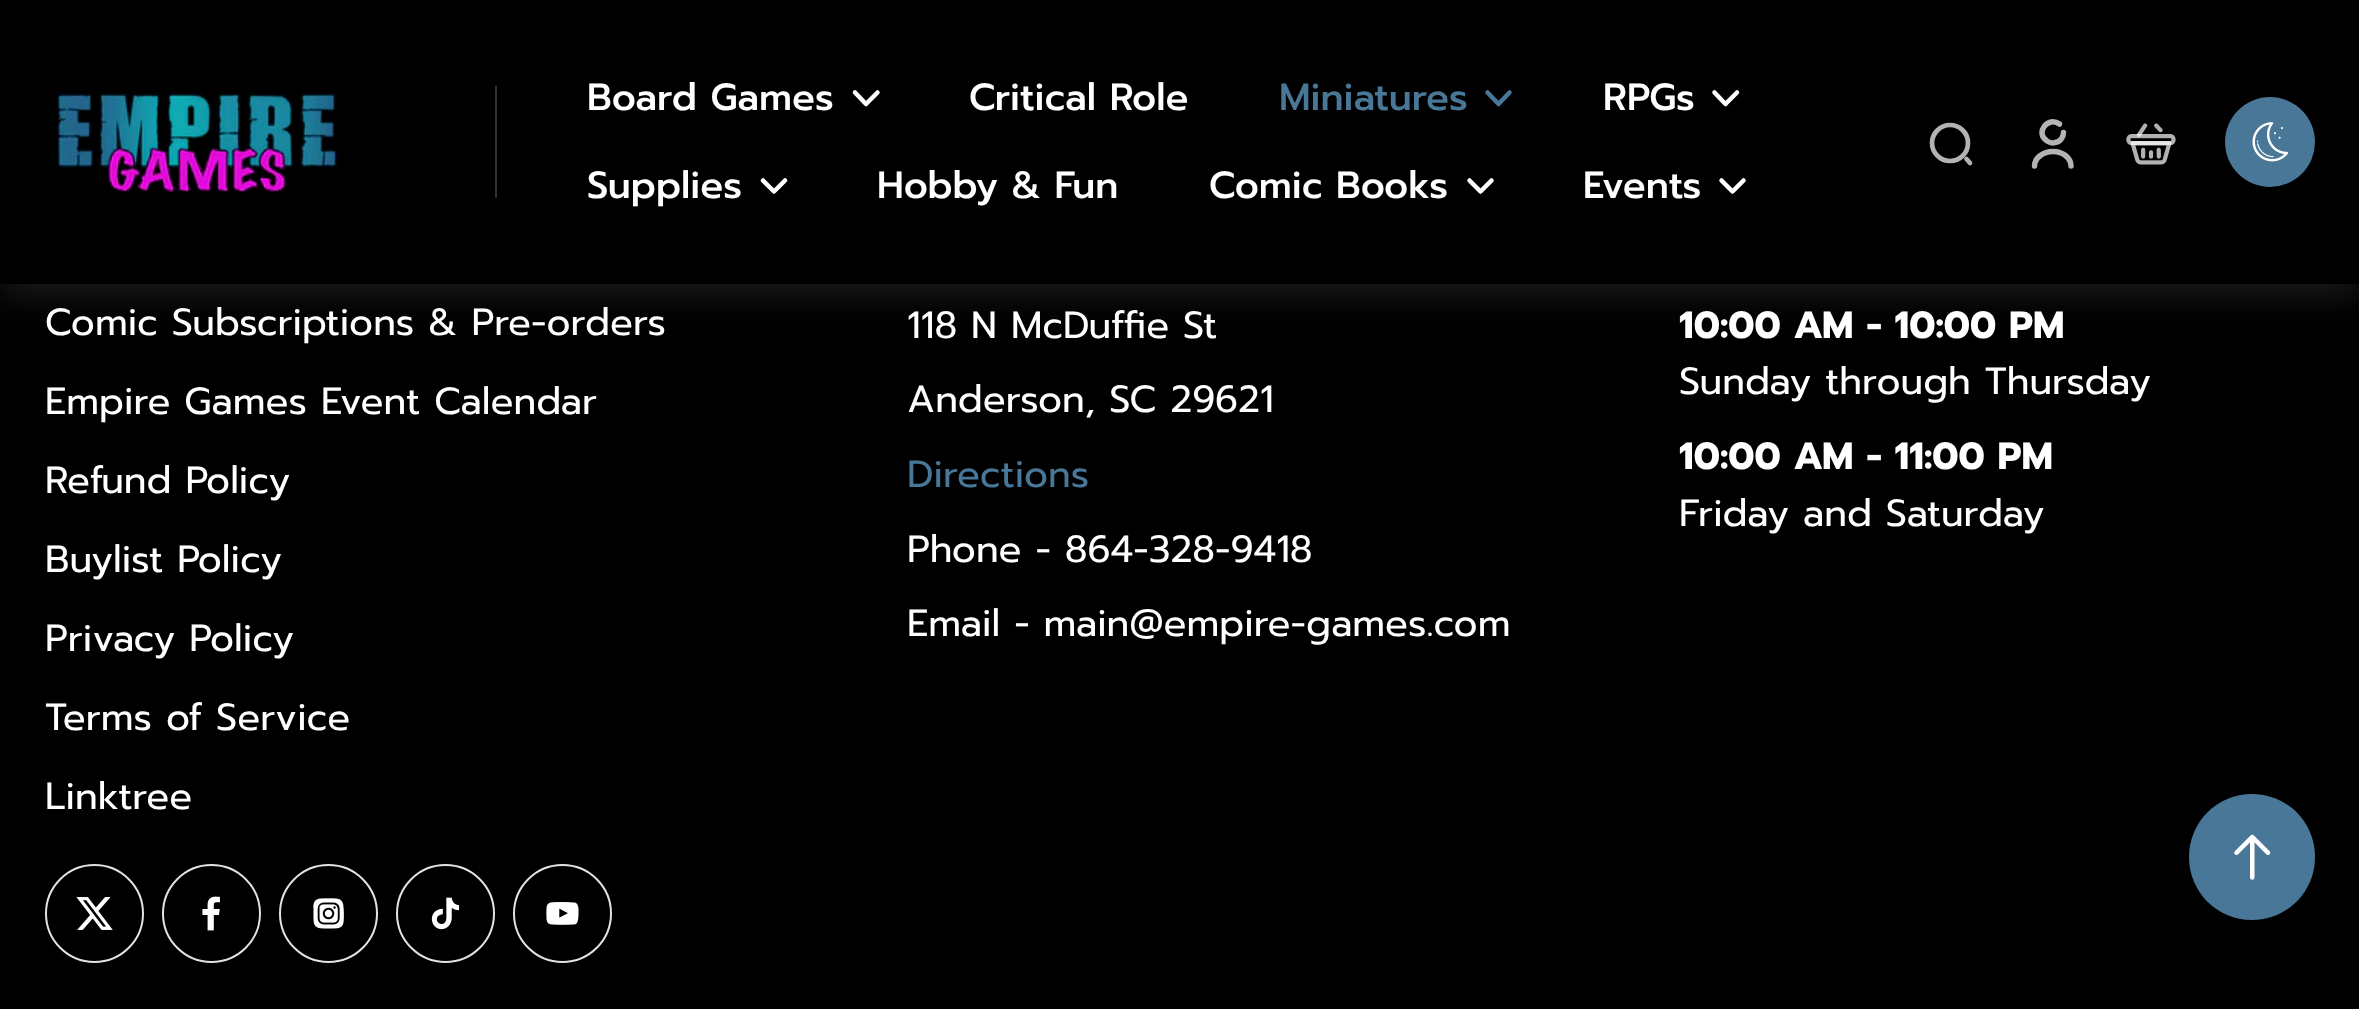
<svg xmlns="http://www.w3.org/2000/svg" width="2359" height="1009">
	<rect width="100%" height="100%" fill="#000000" />
	<rect x="0" y="11" width="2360" height="284" fill="#FFFFFF" fill-opacity="0.1" filter="blur(17px)" />
	<rect x="0" y="0" width="2359" height="284" fill="#000000" />
	<rect x="495" y="86" width="2" height="112" fill="#313131" />
	<image x="56" y="91" width="282" height="102" href="assets/img1.png" />
	<text x="587" y="110" font-family="Prompt" font-size="37.75" font-weight="500" fill="#FFFFFF">Board Games</text>
	<path d="M855 92.5L866 104L877.5 92.5" fill="none" stroke="#FFFFFF" stroke-width="4.5" stroke-linecap="round" stroke-linejoin="round" />
	<text x="969" y="110" font-family="Prompt" font-size="37.75" font-weight="500" fill="#FFFFFF">Critical Role</text>
	<text x="1279" y="110" font-family="Prompt" font-size="37.75" font-weight="500" fill="#487797">Miniatures</text>
	<path d="M1487.5 92.5L1498.5 104L1509.5 92.5" fill="none" stroke="#487797" stroke-width="4.5" stroke-linecap="round" stroke-linejoin="round" />
	<text x="1603" y="110" font-family="Prompt" font-size="37.75" font-weight="500" fill="#FFFFFF">RPGs</text>
	<path d="M1714.5 92.5L1725.5 104L1737 92.5" fill="none" stroke="#FFFFFF" stroke-width="4.5" stroke-linecap="round" stroke-linejoin="round" />
	<text x="587" y="198" font-family="Prompt" font-size="37.75" font-weight="500" fill="#FFFFFF">Supplies</text>
	<path d="M763 180.5L774 191.5L785 180.5" fill="none" stroke="#FFFFFF" stroke-width="4.5" stroke-linecap="round" stroke-linejoin="round" />
	<g font-family="Prompt" font-size="37.75" font-weight="500" fill="#FFFFFF">
		<text x="877" y="198">Hobby &amp; Fun</text>
		<text x="1209" y="198">Comic Books</text>
	</g>
	<path d="M1469.5 180.5L1480.5 191.5L1491.5 180.5" fill="none" stroke="#FFFFFF" stroke-width="4.5" stroke-linecap="round" stroke-linejoin="round" />
	<text x="1583" y="198" font-family="Prompt" font-size="37.75" font-weight="500" fill="#FFFFFF">Events</text>
	<path d="M1721.5 180.5L1732.5 191.5L1743.5 180.5" fill="none" stroke="#FFFFFF" stroke-width="4.5" stroke-linecap="round" stroke-linejoin="round" />
	<path d="M1950 161C1960 161 1968 153 1968 143C1968 133 1960 125 1950 125C1940.5 125 1932 133 1932 143C1932 153 1940.5 161 1950 161ZM1970 163L1966.5 159" fill="none" stroke="#B3B3B3" stroke-width="4.7" stroke-linecap="round" stroke-linejoin="round" />
	<path d="M2059.5 124C2048 115.5 2034.5 133 2047 141C2049.5 142.5 2052.5 143.5 2055 142.5C2060 142 2063.5 137.5 2063.5 132.5M2071 166C2071 158 2063 151.5 2053 151.5C2043 151.5 2034.5 158 2034.5 166" fill="none" stroke="#B3B3B3" stroke-width="5.5" stroke-linecap="round" stroke-linejoin="round" />
	<image x="2126" y="123" width="50" height="42" href="assets/img2.png" />
	<circle cx="2270" cy="142" r="45" fill="#487797" />
	<image x="2252" y="122" width="37" height="40" href="assets/img3.png" />
	<g font-family="Prompt" font-size="37.75" fill="#FFFFFF">
		<text x="45" y="335">Comic Subscriptions &amp; Pre-orders</text>
		<text x="45" y="414">Empire Games Event Calendar</text>
		<text x="45" y="493">Refund Policy</text>
		<text x="45" y="572">Buylist Policy</text>
		<text x="45" y="651">Privacy Policy</text>
		<text x="45" y="730">Terms of Service</text>
		<text x="45" y="809">Linktree</text>
	</g>
	<circle cx="94.5" cy="913.5" r="48.5" fill="none" stroke="#E3E3E3" stroke-width="2" />
	<image x="76" y="897" width="37" height="33" href="assets/img4.png" />
	<circle cx="211.5" cy="913.5" r="48.5" fill="none" stroke="#E3E3E3" stroke-width="2" />
	<image x="202" y="896" width="18" height="35" href="assets/img5.png" />
	<circle cx="328.5" cy="913.5" r="48.5" fill="none" stroke="#E3E3E3" stroke-width="2" />
	<image x="313" y="898" width="31" height="31" href="assets/img6.png" />
	<circle cx="445.5" cy="913.5" r="48.5" fill="none" stroke="#E3E3E3" stroke-width="2" />
	<image x="431" y="897" width="28" height="33" href="assets/img7.png" />
	<circle cx="562.5" cy="913.5" r="48.5" fill="none" stroke="#E3E3E3" stroke-width="2" />
	<image x="546" y="902" width="33" height="23" href="assets/img8.png" />
	<g font-family="Prompt" font-size="37.75" fill="#FFFFFF">
		<text x="907" y="338">118 N McDuffie St</text>
		<text x="907" y="412">Anderson, SC 29621</text>
	</g>
	<text x="907" y="487" font-family="Prompt" font-size="37.75" fill="#487797">Directions</text>
	<g font-family="Prompt" font-size="37.75" fill="#FFFFFF">
		<text x="907" y="562">Phone - 864-328-9418</text>
		<text x="907" y="636">Email - main@empire-games.com</text>
	</g>
	<text x="1679" y="338" font-family="Prompt" font-size="37.75" font-weight="700" fill="#FFFFFF">10:00 AM - 10:00 PM</text>
	<text x="1679" y="394" font-family="Prompt" font-size="37.75" fill="#FFFFFF">Sunday through Thursday</text>
	<text x="1679" y="469" font-family="Prompt" font-size="37.75" font-weight="700" fill="#FFFFFF">10:00 AM - 11:00 PM</text>
	<text x="1679" y="526" font-family="Prompt" font-size="37.75" fill="#FFFFFF">Friday and Saturday</text>
	<path d="M2189 857C2189 822 2217 794 2252 794C2287 794 2315 822 2315 857C2315 892 2287 920 2252 920C2217 920 2189 892 2189 857Z" fill="#487797" />
	<image x="2234" y="834" width="37" height="46" href="assets/img9.png" />
</svg>
